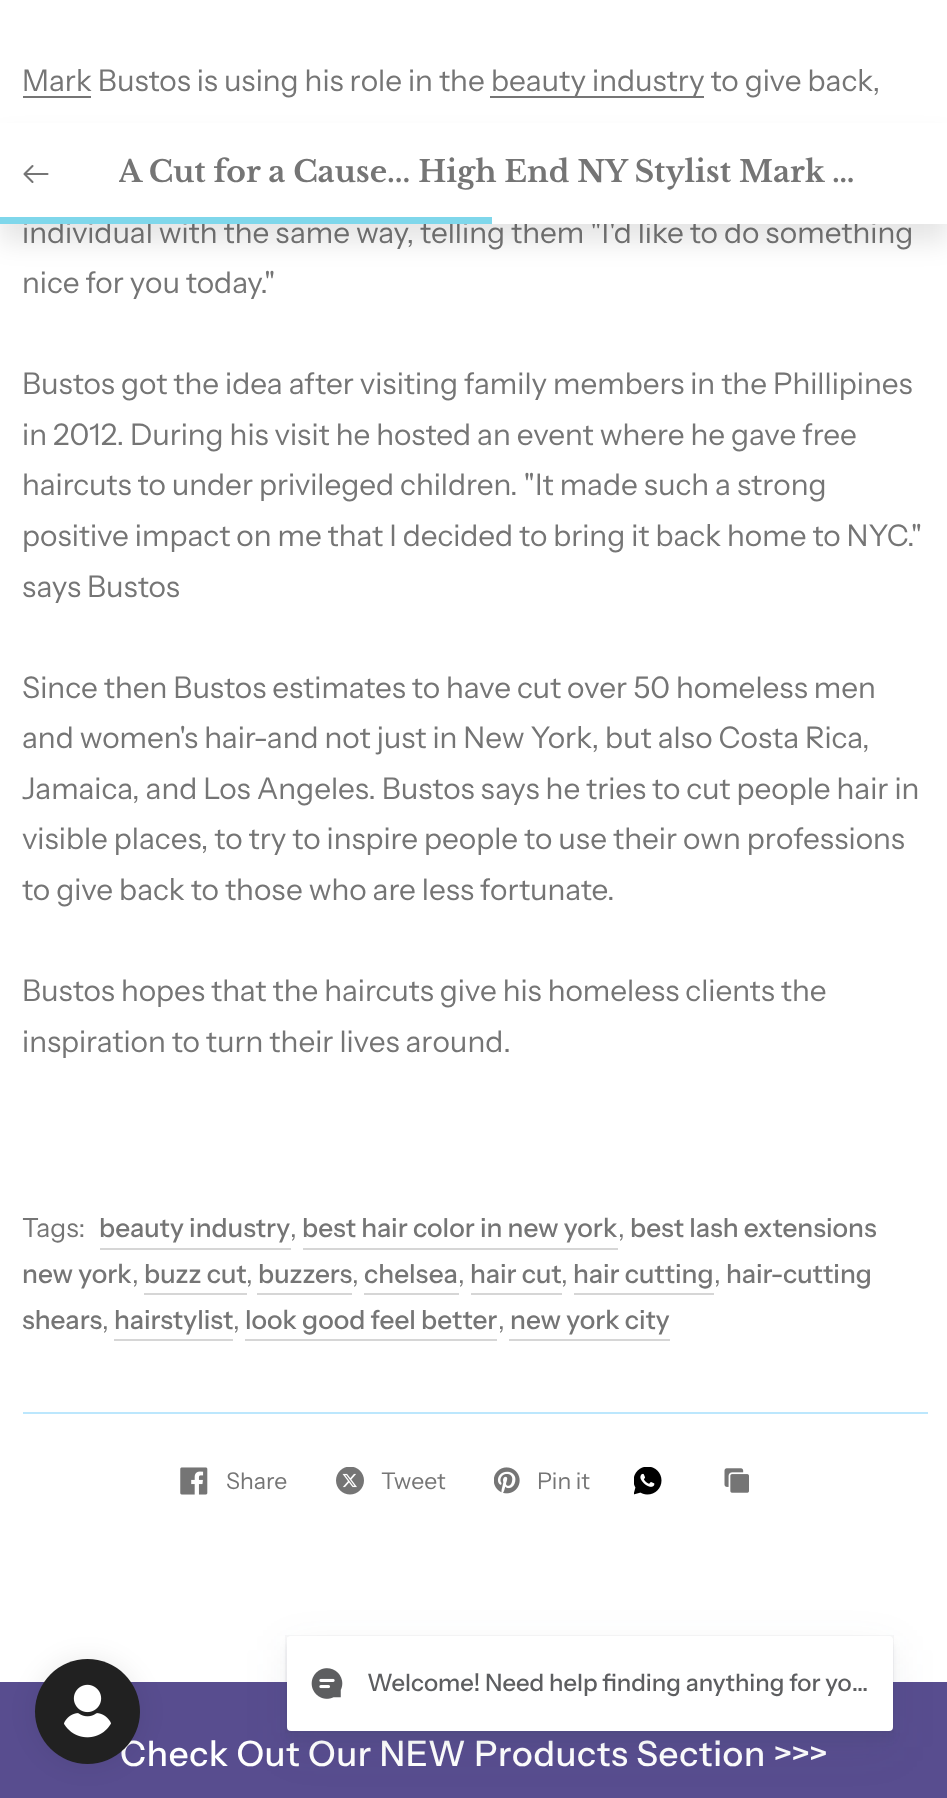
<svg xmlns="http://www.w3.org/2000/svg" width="947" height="1798">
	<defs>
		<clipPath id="clip1"><rect x="119" y="147" width="739" height="53" /></clipPath>
	</defs>
	<rect width="100%" height="100%" fill="#FFFFFF" />
	<rect x="23" y="96" width="68" height="2" fill="#757575" />
	<text x="22" y="91" font-family="Instrument Sans" font-size="29.75" fill="#757575">Mark Bustos is using his role in the</text>
	<rect x="490" y="96" width="214" height="2" fill="#757575" />
	<g font-family="Instrument Sans" font-size="29.75" fill="#757575">
		<text x="491" y="91">beauty industry to give back,</text>
		<text x="22" y="243">individual with the same way, telling them "I'd like to do something</text>
		<text x="22" y="293">nice for you today."</text>
		<text x="22" y="394">Bustos got the idea after visiting family members in the Phillipines</text>
		<text x="22" y="445">in 2012. During his visit he hosted an event where he gave free</text>
		<text x="22" y="495">haircuts to under privileged children. "It made such a strong</text>
		<text x="22" y="546">positive impact on me that I decided to bring it back home to NYC."</text>
		<text x="22" y="597">says Bustos</text>
		<text x="22" y="698">Since then Bustos estimates to have cut over 50 homeless men</text>
		<text x="22" y="748">and women's hair-and not just in New York, but also Costa Rica,</text>
		<text x="22" y="799">Jamaica, and Los Angeles. Bustos says he tries to cut people hair in</text>
		<text x="22" y="849">visible places, to try to inspire people to use their own professions</text>
		<text x="22" y="900">to give back to those who are less fortunate.</text>
		<text x="22" y="1001">Bustos hopes that the haircuts give his homeless clients the</text>
		<text x="22" y="1052">inspiration to turn their lives around.</text>
	</g>
	<text x="22" y="1237" font-family="Instrument Sans" font-size="26.25" fill="#757575">Tags:</text>
	<text x="99" y="1237" font-family="Instrument Sans" font-size="26.25" font-weight="500" fill="#757575">beauty industry</text>
	<rect x="100" y="1248" width="191" height="2" fill="#D6D6D6" />
	<text x="290" y="1237" font-family="Instrument Sans" font-size="26.25" fill="#757575">,</text>
	<text x="302" y="1237" font-family="Instrument Sans" font-size="26.25" font-weight="500" fill="#757575">best hair color in new york</text>
	<rect x="303" y="1248" width="315" height="2" fill="#D6D6D6" />
	<text x="618" y="1237" font-family="Instrument Sans" font-size="26.25" fill="#757575">,</text>
	<g font-family="Instrument Sans" font-size="26.25" font-weight="500" fill="#757575">
		<text x="630" y="1237">best lash extensions</text>
		<text x="22" y="1283">new york</text>
	</g>
	<text x="132" y="1283" font-family="Instrument Sans" font-size="26.25" fill="#757575">,</text>
	<text x="144" y="1283" font-family="Instrument Sans" font-size="26.25" font-weight="500" fill="#757575">buzz cut</text>
	<rect x="144" y="1293" width="103" height="2" fill="#D6D6D6" />
	<text x="246" y="1283" font-family="Instrument Sans" font-size="26.25" fill="#757575">,</text>
	<text x="258" y="1283" font-family="Instrument Sans" font-size="26.25" font-weight="500" fill="#757575">buzzers</text>
	<rect x="257" y="1293" width="95" height="2" fill="#D6D6D6" />
	<text x="352" y="1283" font-family="Instrument Sans" font-size="26.25" fill="#757575">,</text>
	<text x="364" y="1283" font-family="Instrument Sans" font-size="26.25" font-weight="500" fill="#757575">chelsea</text>
	<rect x="364" y="1293" width="95" height="2" fill="#D6D6D6" />
	<text x="458" y="1283" font-family="Instrument Sans" font-size="26.25" fill="#757575">,</text>
	<text x="470" y="1283" font-family="Instrument Sans" font-size="26.25" font-weight="500" fill="#757575">hair cut</text>
	<rect x="471" y="1293" width="91" height="2" fill="#D6D6D6" />
	<text x="561" y="1283" font-family="Instrument Sans" font-size="26.25" fill="#757575">,</text>
	<text x="573" y="1283" font-family="Instrument Sans" font-size="26.25" font-weight="500" fill="#757575">hair cutting</text>
	<rect x="574" y="1293" width="140" height="2" fill="#D6D6D6" />
	<text x="714" y="1283" font-family="Instrument Sans" font-size="26.25" fill="#757575">,</text>
	<g font-family="Instrument Sans" font-size="26.25" font-weight="500" fill="#757575">
		<text x="726" y="1283">hair-cutting</text>
		<text x="22" y="1329">shears</text>
	</g>
	<text x="102" y="1329" font-family="Instrument Sans" font-size="26.25" fill="#757575">,</text>
	<text x="114" y="1329" font-family="Instrument Sans" font-size="26.25" font-weight="500" fill="#757575">hairstylist</text>
	<rect x="114" y="1339" width="119" height="2" fill="#D6D6D6" />
	<text x="233" y="1329" font-family="Instrument Sans" font-size="26.25" fill="#757575">,</text>
	<text x="245" y="1329" font-family="Instrument Sans" font-size="26.25" font-weight="500" fill="#757575">look good feel better</text>
	<rect x="245" y="1339" width="252" height="2" fill="#D6D6D6" />
	<text x="498" y="1329" font-family="Instrument Sans" font-size="26.25" fill="#757575">,</text>
	<text x="510" y="1329" font-family="Instrument Sans" font-size="26.25" font-weight="500" fill="#757575">new york city</text>
	<rect x="509" y="1339" width="161" height="2" fill="#D6D6D6" />
	<rect x="23" y="1412" width="905" height="2" fill="#BCE7FD" />
	<image x="180" y="1467" width="28" height="28" href="assets/img1.png" />
	<text x="226" y="1489" font-family="Instrument Sans" font-size="23" fill="#757575">Share</text>
	<image x="336" y="1467" width="28" height="28" href="assets/img2.png" />
	<text x="381" y="1489" font-family="Instrument Sans" font-size="23" fill="#757575">Tweet</text>
	<image x="494" y="1467" width="26" height="27" href="assets/img3.png" />
	<text x="537" y="1489" font-family="Instrument Sans" font-size="23" fill="#757575">Pin it</text>
	<image x="634" y="1467" width="28" height="28" href="assets/img4.png" />
	<image x="724" y="1468" width="25" height="25" href="assets/img5.png" />
	<rect x="0" y="140" width="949" height="102" fill="#000000" fill-opacity="0.1" filter="blur(13px)" />
	<rect x="0" y="123" width="947" height="101" fill="#FFFFFF" />
	<path d="M47.5 174H26.5M32.5 166L24.5 174L32.5 182" fill="none" stroke="#757575" stroke-width="2.1" stroke-linecap="round" stroke-linejoin="round" />
	<g clip-path="url(#clip1)">
		<text x="118" y="182" font-family="Libre Baskerville" font-size="29.75" font-weight="700" fill="#757575">A Cut for a Cause... High End NY Stylist Mark …</text>
	</g>
	<rect x="0" y="217" width="492" height="7" fill="#7FD7EB" />
	<rect x="0" y="1682" width="947" height="116" fill="#584D8F" />
	<text x="120" y="1766" font-family="Instrument Sans" font-size="35" font-weight="500" letter-spacing="0.7" fill="#FFFFFF">Check Out Our NEW Products Section &gt;&gt;&gt;</text>
	<rect x="35" y="1659" width="105" height="105" rx="52.5" fill="#000000" fill-opacity="0.08" filter="blur(13px)" />
	<circle cx="87.5" cy="1711.5" r="52.5" fill="#212121" />
	<image x="64" y="1684" width="47" height="54" href="assets/img6.png" />
	<rect x="287" y="1650" width="606" height="97" rx="4" fill="#373F47" fill-opacity="0.08" filter="blur(22px)" />
	<rect x="287" y="1643" width="606" height="97" rx="4" fill="#373F47" fill-opacity="0.08" filter="blur(3.5px)" />
	<rect x="286" y="1636" width="607" height="96" fill="none" stroke="#373F47" stroke-opacity="0.04" stroke-width="2" />
	<rect x="287" y="1636" width="606" height="95" rx="4" fill="#FFFFFF" />
	<image x="311" y="1668" width="32" height="31" href="assets/img7.png" />
	<text x="367" y="1691" font-family="Instrument Sans" font-size="23.9" font-weight="500" fill="#5D5E60">Welcome! Need help finding anything for yo…</text>
</svg>
